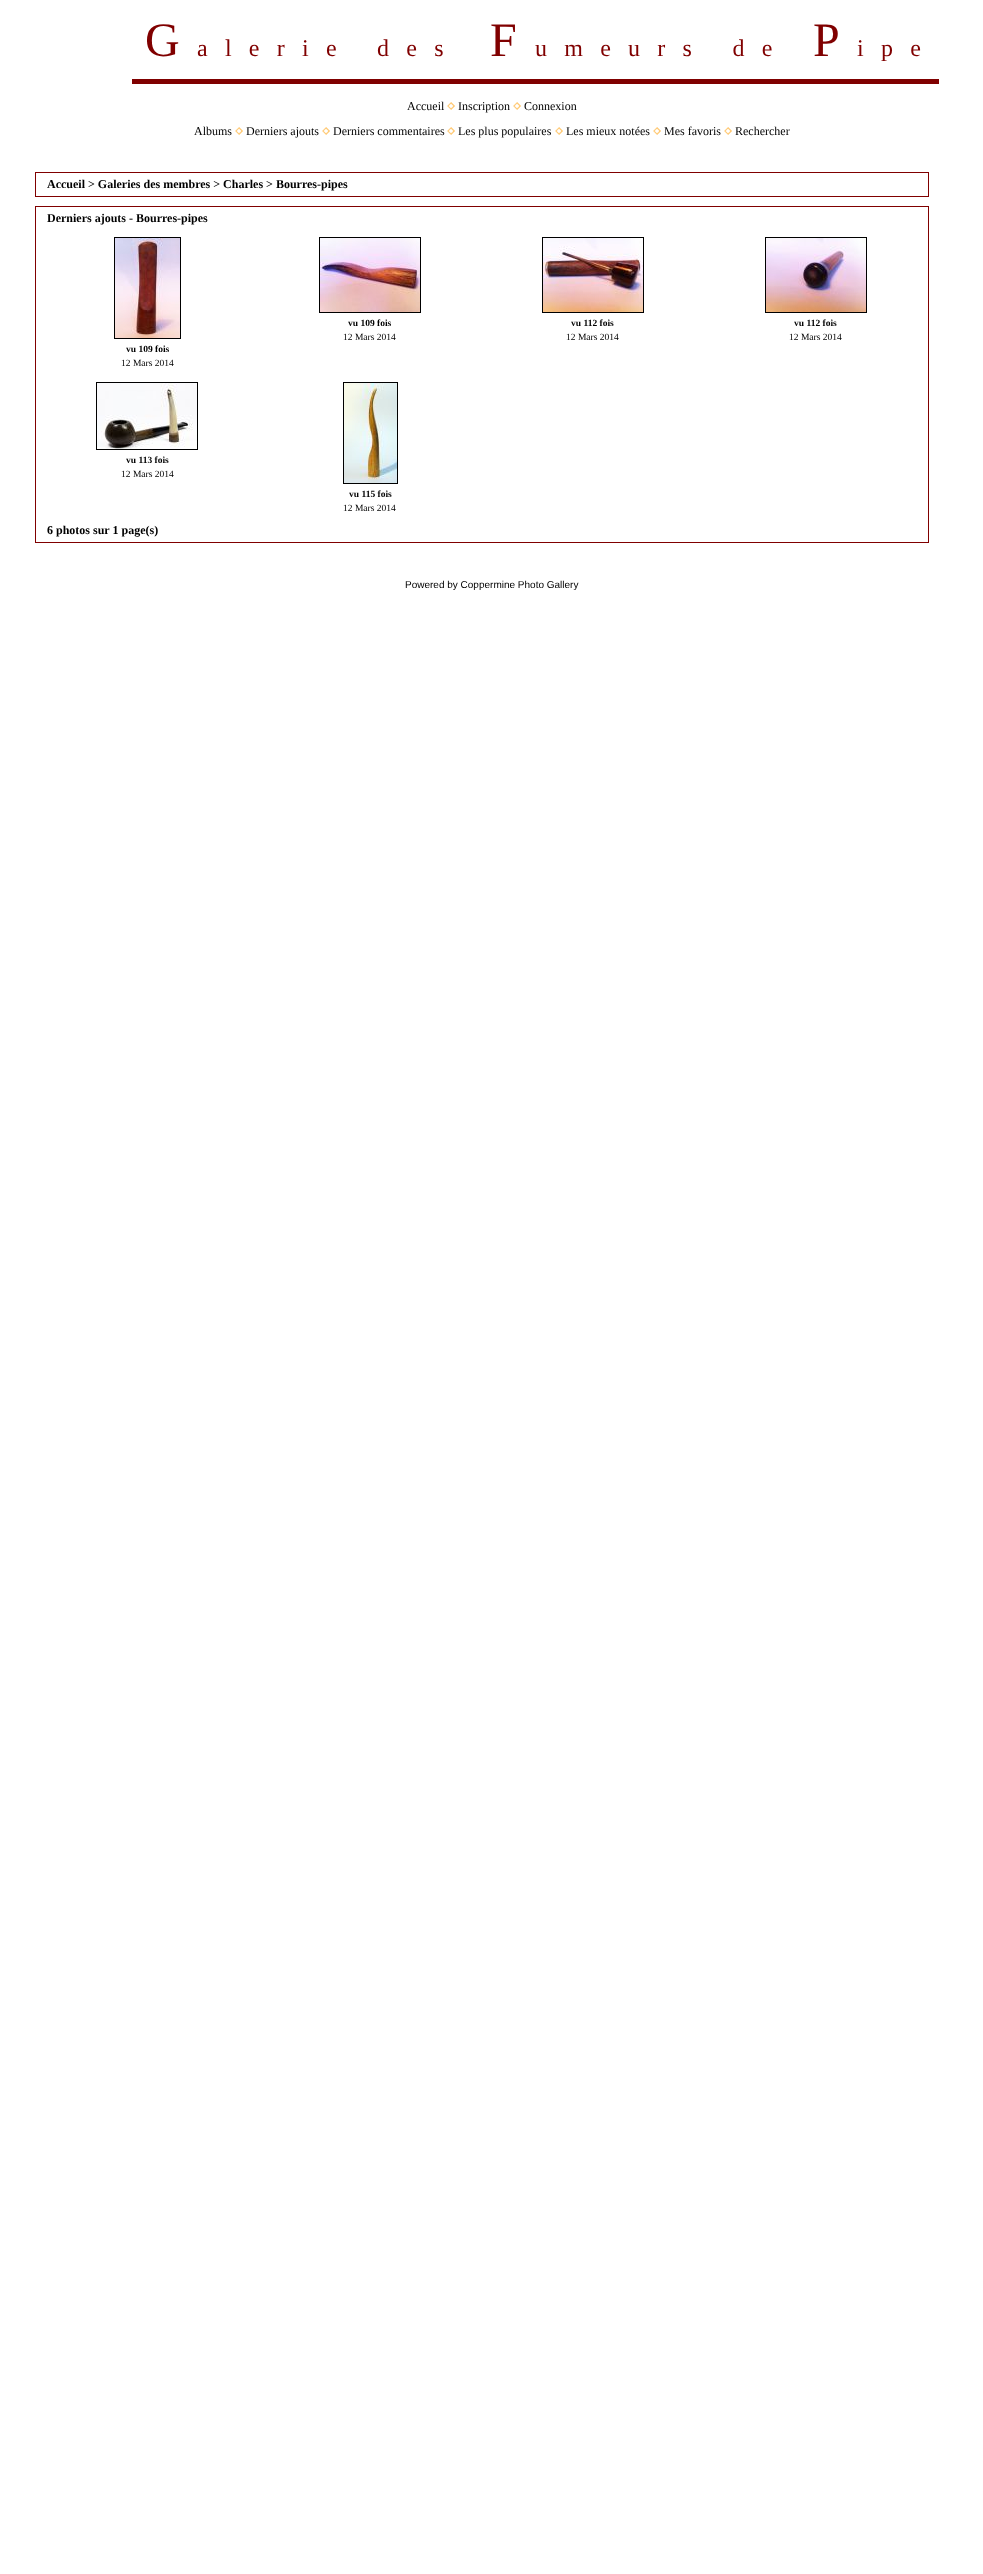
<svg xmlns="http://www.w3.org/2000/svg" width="983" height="2574">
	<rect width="100%" height="100%" fill="#FFFFFF" />
	<text x="145" y="56" font-family="Liberation Serif" font-size="48" letter-spacing="17.25" fill="#800000">G</text>
	<text x="197" y="56" font-family="Liberation Serif" font-size="24" letter-spacing="17.25" fill="#800000">alerie des</text>
	<text x="490" y="56" font-family="Liberation Serif" font-size="48" letter-spacing="17.25" fill="#800000">F</text>
	<text x="535" y="56" font-family="Liberation Serif" font-size="24" letter-spacing="17.25" fill="#800000">umeurs de</text>
	<text x="813" y="56" font-family="Liberation Serif" font-size="48" letter-spacing="17.25" fill="#800000">P</text>
	<text x="857" y="56" font-family="Liberation Serif" font-size="24" letter-spacing="17.25" fill="#800000">ipe</text>
	<rect x="132" y="79" width="807" height="5" fill="#800000" />
	<text x="407" y="110" font-family="Liberation Serif" font-size="12" fill="#000000">Accueil</text>
	<image x="447" y="102" width="8" height="8" href="assets/img1.png" />
	<text x="458" y="110" font-family="Liberation Serif" font-size="12" fill="#000000">Inscription</text>
	<image x="513" y="102" width="8" height="8" href="assets/img1.png" />
	<g font-family="Liberation Serif" font-size="12" fill="#000000">
		<text x="524" y="110">Connexion</text>
		<text x="194" y="135">Albums</text>
	</g>
	<image x="235" y="127" width="8" height="8" href="assets/img1.png" />
	<text x="246" y="135" font-family="Liberation Serif" font-size="12" fill="#000000">Derniers ajouts</text>
	<image x="322" y="127" width="8" height="8" href="assets/img1.png" />
	<text x="333" y="135" font-family="Liberation Serif" font-size="12" fill="#000000">Derniers commentaires</text>
	<image x="447" y="127" width="8" height="8" href="assets/img1.png" />
	<text x="458" y="135" font-family="Liberation Serif" font-size="12" fill="#000000">Les plus populaires</text>
	<image x="555" y="127" width="8" height="8" href="assets/img1.png" />
	<text x="566" y="135" font-family="Liberation Serif" font-size="12" fill="#000000">Les mieux notées</text>
	<image x="653" y="127" width="8" height="8" href="assets/img1.png" />
	<text x="664" y="135" font-family="Liberation Serif" font-size="12" fill="#000000">Mes favoris</text>
	<image x="724" y="127" width="8" height="8" href="assets/img1.png" />
	<text x="735" y="135" font-family="Liberation Serif" font-size="12" fill="#000000">Rechercher</text>
	<rect x="35.5" y="172.5" width="893" height="24" fill="none" stroke="#800000" />
	<text x="47" y="188" font-family="Liberation Serif" font-size="12" font-weight="700" fill="#000000">Accueil &gt; Galeries des membres &gt; Charles &gt; Bourres-pipes</text>
	<rect x="35.5" y="206.5" width="893" height="336" fill="none" stroke="#800000" />
	<text x="47" y="222" font-family="Liberation Serif" font-size="12" font-weight="700" fill="#000000">Derniers ajouts - Bourres-pipes</text>
	<rect x="319.5" y="237.5" width="101" height="75" fill="none" stroke="#000000" />
	<image x="320" y="238" width="100" height="74" href="assets/img2.png" />
	<text x="348" y="326" font-family="Liberation Serif" font-size="9.5" font-weight="700" fill="#000000">vu 109 fois</text>
	<text x="343" y="340" font-family="Liberation Serif" font-size="9.5" fill="#000000">12 Mars 2014</text>
	<rect x="542.5" y="237.5" width="101" height="75" fill="none" stroke="#000000" />
	<image x="543" y="238" width="100" height="74" href="assets/img3.png" />
	<text x="571" y="326" font-family="Liberation Serif" font-size="9.5" font-weight="700" fill="#000000">vu 112 fois</text>
	<text x="566" y="340" font-family="Liberation Serif" font-size="9.5" fill="#000000">12 Mars 2014</text>
	<rect x="765.5" y="237.5" width="101" height="75" fill="none" stroke="#000000" />
	<image x="766" y="238" width="100" height="74" href="assets/img4.png" />
	<text x="794" y="326" font-family="Liberation Serif" font-size="9.5" font-weight="700" fill="#000000">vu 112 fois</text>
	<text x="789" y="340" font-family="Liberation Serif" font-size="9.5" fill="#000000">12 Mars 2014</text>
	<rect x="114.5" y="237.5" width="66" height="101" fill="none" stroke="#000000" />
	<image x="115" y="238" width="65" height="100" href="assets/img5.png" />
	<text x="126" y="352" font-family="Liberation Serif" font-size="9.5" font-weight="700" fill="#000000">vu 109 fois</text>
	<text x="121" y="366" font-family="Liberation Serif" font-size="9.5" fill="#000000">12 Mars 2014</text>
	<rect x="96.5" y="382.5" width="101" height="67" fill="none" stroke="#000000" />
	<image x="97" y="383" width="100" height="66" href="assets/img6.png" />
	<text x="126" y="463" font-family="Liberation Serif" font-size="9.5" font-weight="700" fill="#000000">vu 113 fois</text>
	<text x="121" y="477" font-family="Liberation Serif" font-size="9.5" fill="#000000">12 Mars 2014</text>
	<rect x="343.5" y="382.5" width="54" height="101" fill="none" stroke="#000000" />
	<image x="344" y="383" width="53" height="100" href="assets/img7.png" />
	<text x="349" y="497" font-family="Liberation Serif" font-size="9.5" font-weight="700" fill="#000000">vu 115 fois</text>
	<text x="343" y="511" font-family="Liberation Serif" font-size="9.5" fill="#000000">12 Mars 2014</text>
	<text x="47" y="534" font-family="Liberation Serif" font-size="12" font-weight="700" fill="#000000">6 photos sur 1 page(s)</text>
	<text x="405" y="588" font-family="Liberation Sans" font-size="10" fill="#000000">Powered by Coppermine Photo Gallery</text>
</svg>
